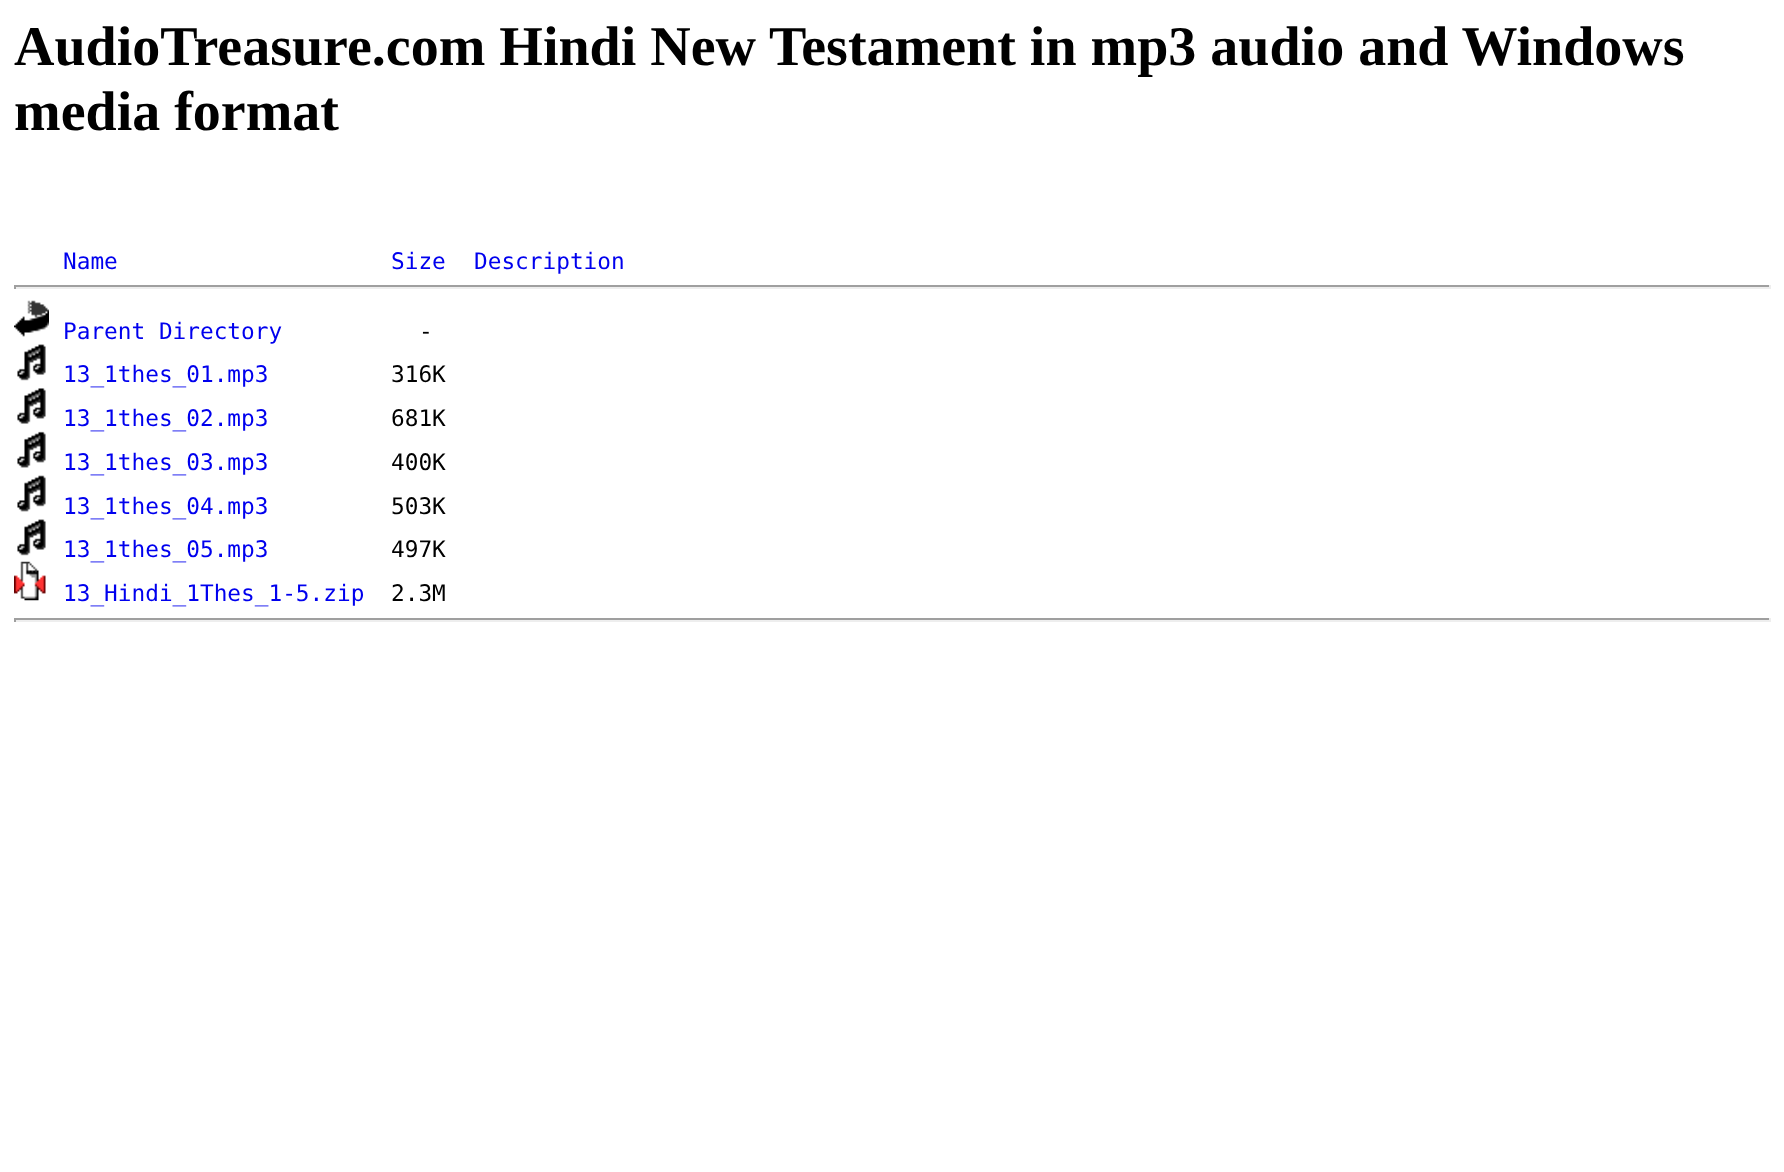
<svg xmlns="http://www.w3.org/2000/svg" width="1784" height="1172">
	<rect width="100%" height="100%" fill="#FFFFFF" />
	<g font-family="Liberation Serif" font-size="56" font-weight="700" fill="#000000">
		<text x="14" y="65">AudioTreasure.com Hindi New Testament in mp3 audio and Windows</text>
		<text x="14" y="130">media format</text>
	</g>
	<g font-family="DejaVu Sans Mono" font-size="22.75" fill="#0000EE">
		<text x="63" y="269">Name</text>
		<text x="391" y="269">Size</text>
		<text x="474" y="269">Description</text>
	</g>
	<rect x="14" y="285" width="1757" height="2" fill="#9F9F9F" />
	<rect x="1769" y="285" width="2" height="4" fill="#EEEEEE" />
	<rect x="14" y="287" width="1757" height="2" fill="#EEEEEE" />
	<rect x="14" y="285" width="2" height="4" fill="#9F9F9F" />
	<image x="14" y="300" width="35" height="37" href="assets/img1.png" />
	<text x="63" y="339" font-family="DejaVu Sans Mono" font-size="22.75" fill="#0000EE">Parent Directory</text>
	<text x="419" y="339" font-family="DejaVu Sans Mono" font-size="22.75" fill="#000000">-</text>
	<image x="17" y="344" width="29" height="37" href="assets/img2.png" />
	<text x="63" y="382" font-family="DejaVu Sans Mono" font-size="22.75" fill="#0000EE">13_1thes_01.mp3</text>
	<text x="391" y="382" font-family="DejaVu Sans Mono" font-size="22.75" fill="#000000">316K</text>
	<image x="17" y="388" width="29" height="36" href="assets/img3.png" />
	<text x="63" y="426" font-family="DejaVu Sans Mono" font-size="22.75" fill="#0000EE">13_1thes_02.mp3</text>
	<text x="391" y="426" font-family="DejaVu Sans Mono" font-size="22.75" fill="#000000">681K</text>
	<image x="17" y="431" width="29" height="37" href="assets/img4.png" />
	<text x="63" y="470" font-family="DejaVu Sans Mono" font-size="22.75" fill="#0000EE">13_1thes_03.mp3</text>
	<text x="391" y="470" font-family="DejaVu Sans Mono" font-size="22.75" fill="#000000">400K</text>
	<image x="17" y="475" width="29" height="37" href="assets/img5.png" />
	<text x="63" y="514" font-family="DejaVu Sans Mono" font-size="22.75" fill="#0000EE">13_1thes_04.mp3</text>
	<text x="391" y="514" font-family="DejaVu Sans Mono" font-size="22.75" fill="#000000">503K</text>
	<image x="17" y="519" width="29" height="37" href="assets/img2.png" />
	<text x="63" y="557" font-family="DejaVu Sans Mono" font-size="22.75" fill="#0000EE">13_1thes_05.mp3</text>
	<text x="391" y="557" font-family="DejaVu Sans Mono" font-size="22.75" fill="#000000">497K</text>
	<image x="14" y="561" width="32" height="40" href="assets/img6.png" />
	<text x="63" y="601" font-family="DejaVu Sans Mono" font-size="22.75" fill="#0000EE">13_Hindi_1Thes_1-5.zip</text>
	<text x="391" y="601" font-family="DejaVu Sans Mono" font-size="22.75" fill="#000000">2.3M</text>
	<rect x="14" y="618" width="1757" height="2" fill="#9F9F9F" />
	<rect x="1769" y="618" width="2" height="4" fill="#EEEEEE" />
	<rect x="14" y="620" width="1757" height="2" fill="#EEEEEE" />
	<rect x="14" y="618" width="2" height="4" fill="#9F9F9F" />
</svg>
